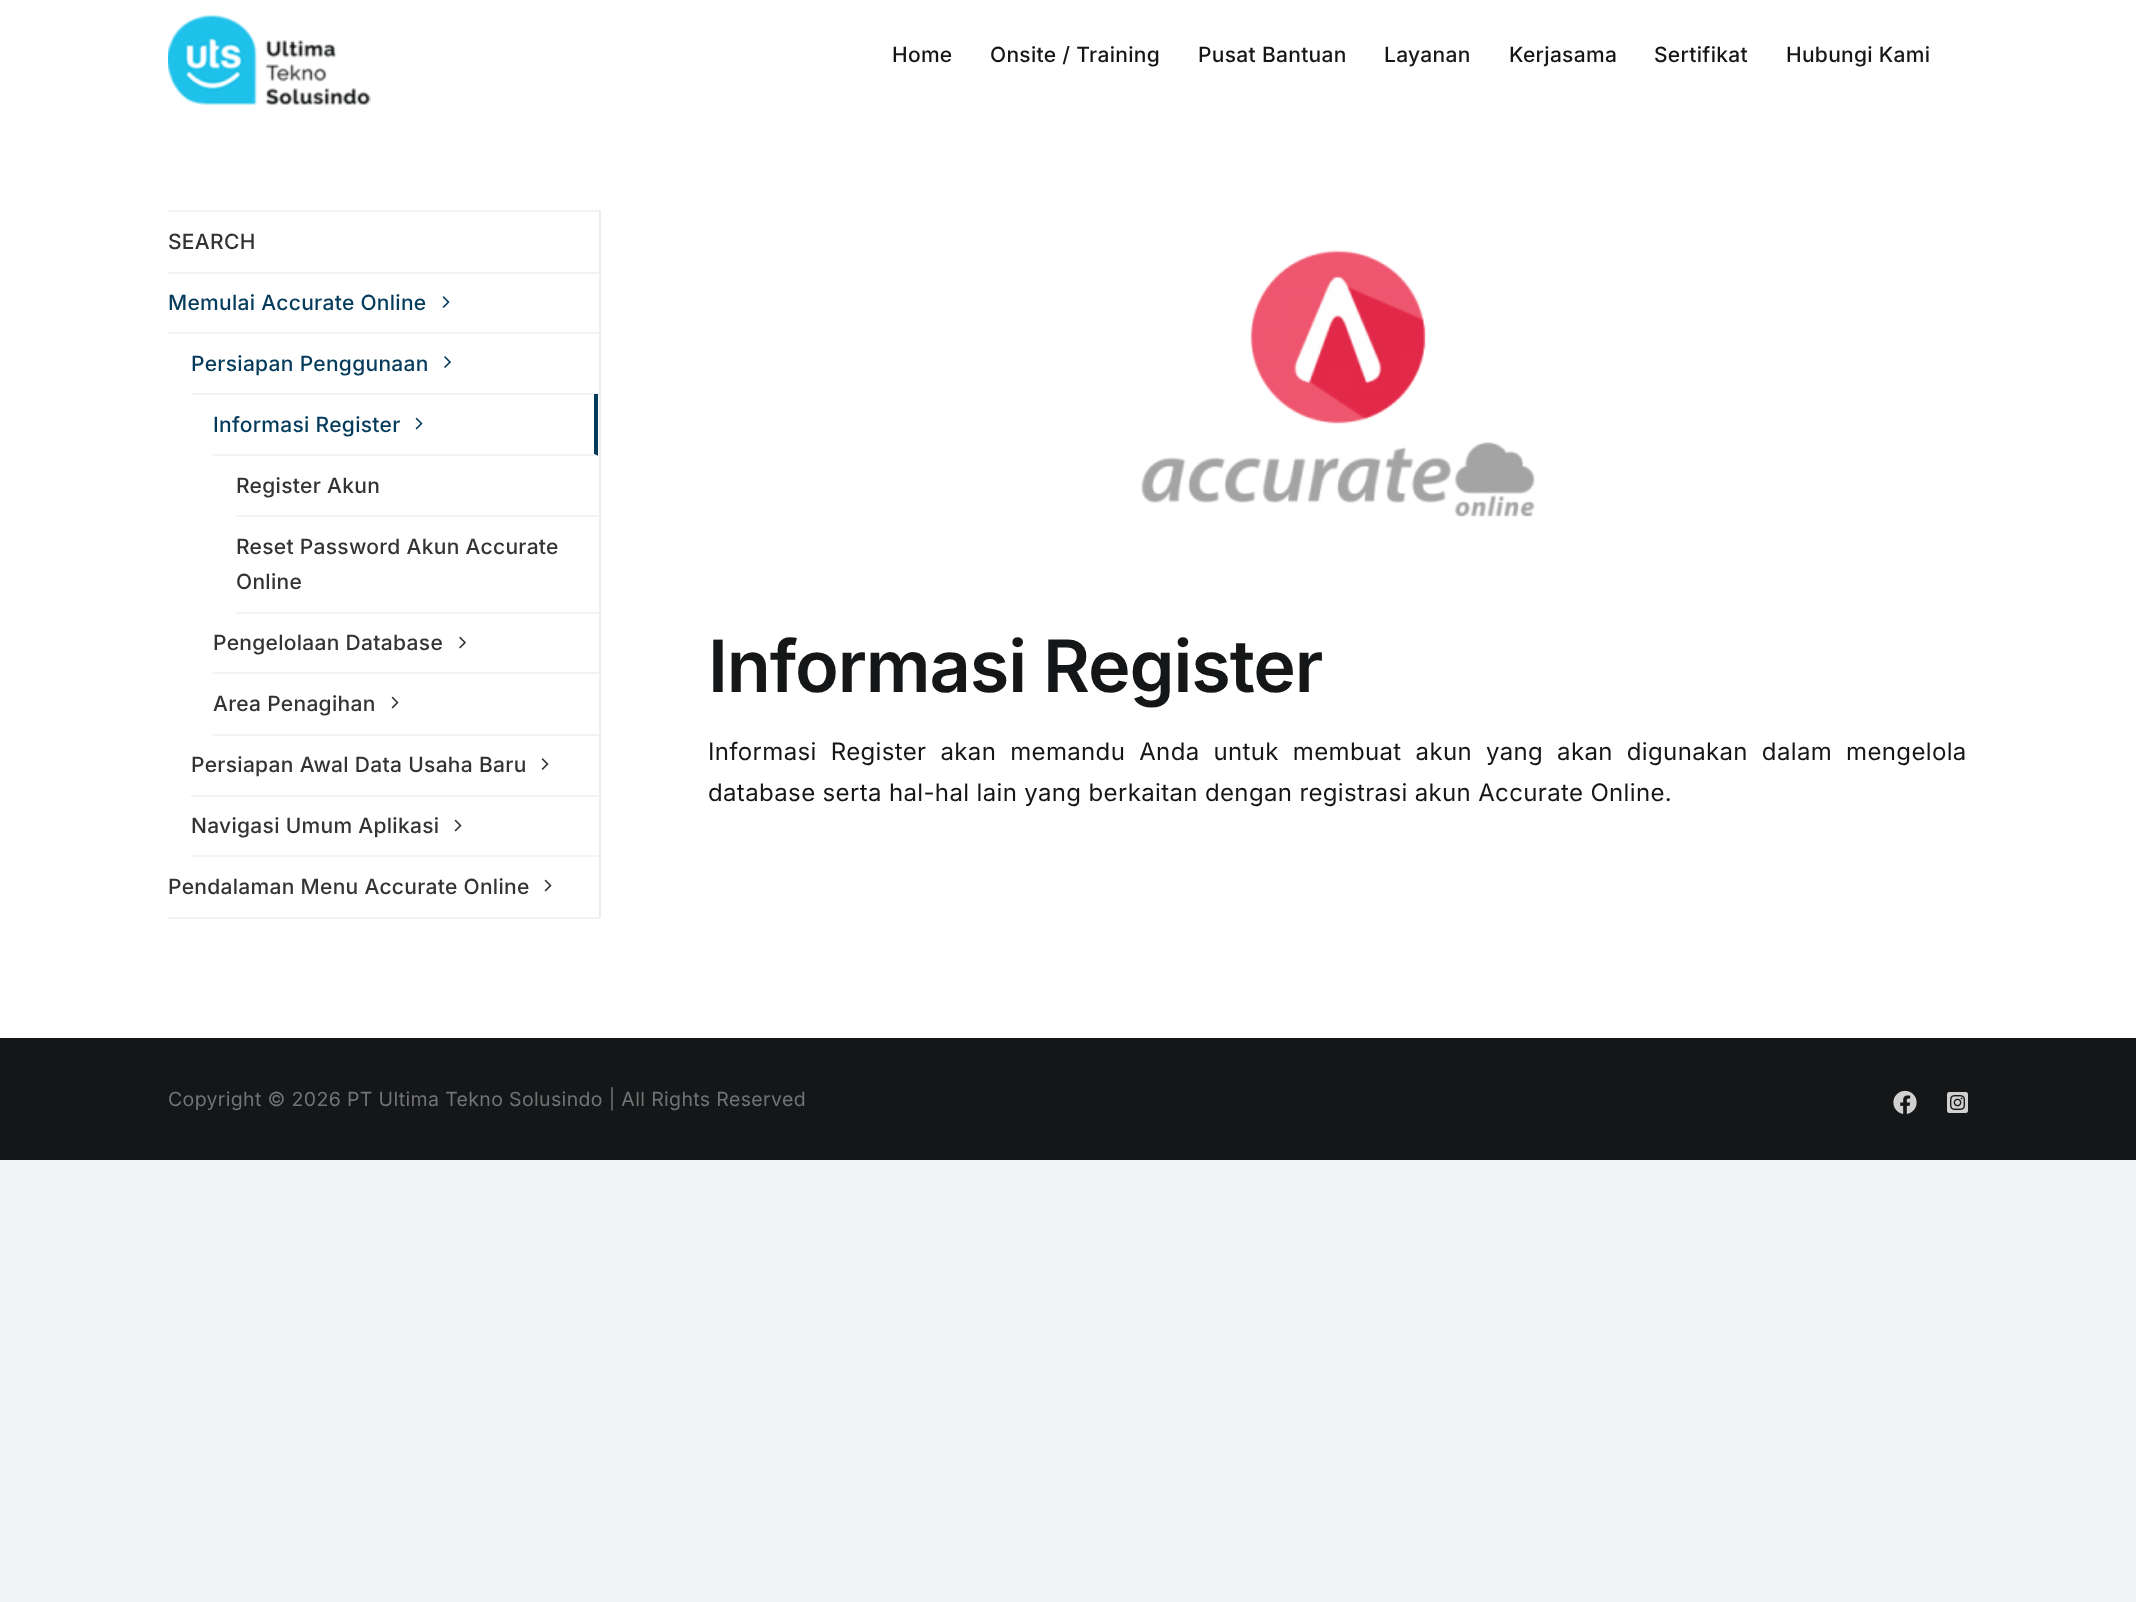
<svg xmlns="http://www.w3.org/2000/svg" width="2136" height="1602">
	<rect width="100%" height="100%" fill="#F2F3F5" />
	<rect x="0" y="0" width="2136" height="1038" fill="#FFFFFF" />
	<image x="168" y="15" width="203" height="90" href="assets/img1.png" />
	<g font-family="Inter" font-size="21" font-weight="500" letter-spacing="0.3" fill="#141617">
		<text x="892" y="62">Home</text>
		<text x="990" y="62">Onsite / Training</text>
		<text x="1198" y="62">Pusat Bantuan</text>
		<text x="1384" y="62">Layanan</text>
		<text x="1509" y="62">Kerjasama</text>
		<text x="1654" y="62">Sertifikat</text>
		<text x="1786" y="62">Hubungi Kami</text>
	</g>
	<rect x="168" y="210" width="432" height="2" fill="#F2F3F5" />
	<rect x="599" y="210" width="2" height="708" fill="#EDEDED" />
	<rect x="168" y="272" width="431" height="2" fill="#F2F3F5" />
	<text x="168" y="249" font-family="Inter" font-size="21" font-weight="500" letter-spacing="0.3" fill="#333333">SEARCH</text>
	<rect x="168" y="332" width="431" height="2" fill="#F2F3F5" />
	<text x="168" y="310" font-family="Inter" font-size="21" font-weight="500" letter-spacing="0.3" fill="#043B5C">Memulai Accurate Online</text>
	<image x="442" y="296" width="8" height="12" href="assets/img2.png" />
	<rect x="191" y="393" width="408" height="2" fill="#F2F3F5" />
	<text x="191" y="371" font-family="Inter" font-size="21" font-weight="500" letter-spacing="0.3" fill="#043B5C">Persiapan Penggunaan</text>
	<image x="444" y="356" width="7" height="12" href="assets/img3.png" />
	<path d="M598 394V456L594 454V394Z" fill="#043B5C" />
	<path d="M598 456H213V454H594Z" fill="#F2F3F5" />
	<text x="213" y="432" font-family="Inter" font-size="21" font-weight="500" letter-spacing="0.3" fill="#043B5C">Informasi Register</text>
	<image x="415" y="417" width="8" height="13" href="assets/img4.png" />
	<rect x="236" y="515" width="363" height="2" fill="#F2F3F5" />
	<text x="236" y="493" font-family="Inter" font-size="21" font-weight="500" letter-spacing="0.3" fill="#333333">Register Akun</text>
	<rect x="236" y="612" width="363" height="2" fill="#F2F3F5" />
	<g font-family="Inter" font-size="21" font-weight="500" letter-spacing="0.3" fill="#333333">
		<text x="236" y="554">Reset Password Akun Accurate</text>
		<text x="236" y="589">Online</text>
	</g>
	<rect x="213" y="672" width="386" height="2" fill="#F2F3F5" />
	<text x="213" y="650" font-family="Inter" font-size="21" font-weight="500" letter-spacing="0.3" fill="#333333">Pengelolaan Database</text>
	<image x="459" y="636" width="7" height="13" href="assets/img5.png" />
	<rect x="213" y="734" width="386" height="2" fill="#F2F3F5" />
	<text x="213" y="711" font-family="Inter" font-size="21" font-weight="500" letter-spacing="0.3" fill="#333333">Area Penagihan</text>
	<image x="391" y="696" width="8" height="13" href="assets/img6.png" />
	<rect x="191" y="795" width="408" height="2" fill="#F2F3F5" />
	<text x="191" y="772" font-family="Inter" font-size="21" font-weight="500" letter-spacing="0.3" fill="#333333">Persiapan Awal Data Usaha Baru</text>
	<image x="541" y="758" width="8" height="12" href="assets/img7.png" />
	<rect x="191" y="855" width="408" height="2" fill="#F2F3F5" />
	<text x="191" y="833" font-family="Inter" font-size="21" font-weight="500" letter-spacing="0.3" fill="#333333">Navigasi Umum Aplikasi</text>
	<image x="454" y="819" width="8" height="13" href="assets/img6.png" />
	<rect x="168" y="917" width="431" height="2" fill="#F2F3F5" />
	<text x="168" y="894" font-family="Inter" font-size="21" font-weight="500" letter-spacing="0.3" fill="#333333">Pendalaman Menu Accurate Online</text>
	<image x="544" y="879" width="8" height="13" href="assets/img6.png" />
	<image x="1141" y="250" width="394" height="267" href="assets/img8.png" />
	<text x="708" y="692" font-family="Inter" font-size="72" font-weight="600" letter-spacing="-1.1" fill="#141617">Informasi Register</text>
	<g font-family="Inter" font-size="24" letter-spacing="0.35" fill="#141617">
		<text x="708" y="760" word-spacing="6.9">Informasi Register akan memandu Anda untuk membuat akun yang akan digunakan dalam mengelola</text>
		<text x="708" y="801">database serta hal-hal lain yang berkaitan dengan registrasi akun Accurate Online.</text>
	</g>
	<rect x="0" y="1038" width="2136" height="122" fill="#141617" />
	<text x="168" y="1106" font-family="Inter" font-size="19.5" letter-spacing="0.35" fill="#727374">Copyright © 2026 PT Ultima Tekno Solusindo | All Rights Reserved</text>
	<image x="1893" y="1090" width="24" height="24" href="assets/img9.png" />
	<image x="1947" y="1092" width="21" height="21" href="assets/img10.png" />
</svg>
